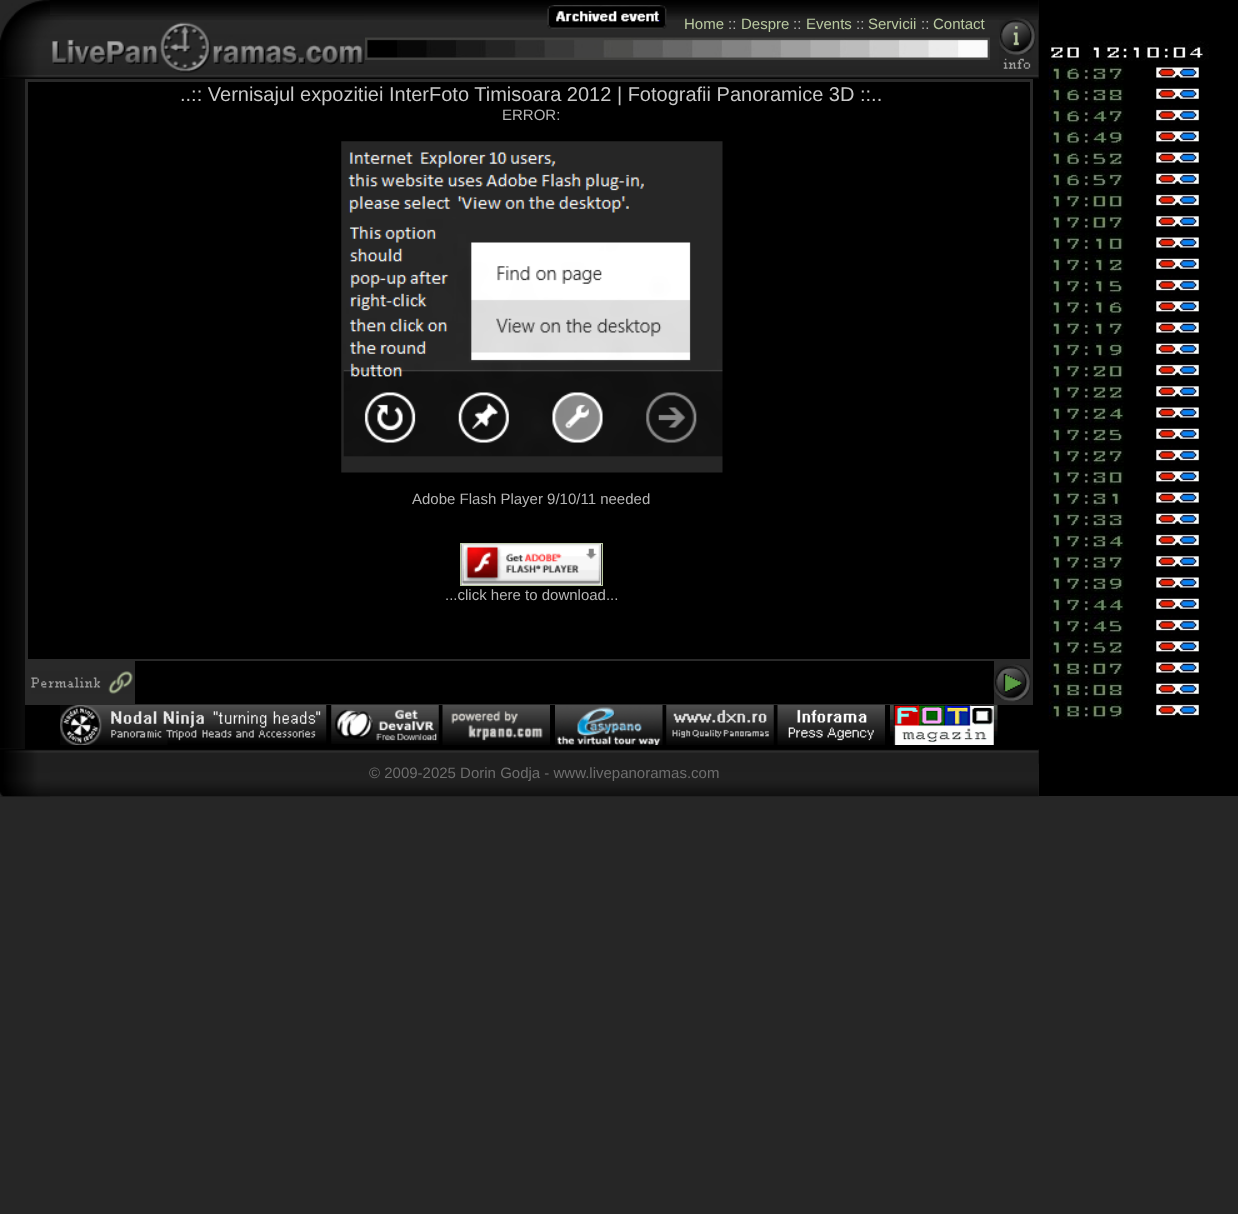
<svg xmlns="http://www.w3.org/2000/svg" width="1238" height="1214">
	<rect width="100%" height="100%" fill="#262626" />
	<rect x="0" y="0" width="1039" height="79" fill="#151515" />
	<image x="0" y="0" width="1039" height="79" href="assets/img1.png" />
	<image x="0" y="0" width="50" height="78" href="assets/img2.png" />
	<image x="50" y="15" width="314" height="58" href="assets/img3.png" />
	<image x="547" y="5" width="120" height="24" href="assets/img4.png" />
	<text x="684" y="29" font-family="Liberation Sans" font-size="15" fill="#B9C9A0">Home</text>
	<text x="728" y="29" font-family="Liberation Sans" font-size="15" fill="#B5B5B5">::</text>
	<text x="741" y="29" font-family="Liberation Sans" font-size="15" fill="#B9C9A0">Despre</text>
	<text x="793" y="29" font-family="Liberation Sans" font-size="15" fill="#B5B5B5">::</text>
	<text x="806" y="29" font-family="Liberation Sans" font-size="15" fill="#B9C9A0">Events</text>
	<text x="856" y="29" font-family="Liberation Sans" font-size="15" fill="#B5B5B5">::</text>
	<text x="868" y="29" font-family="Liberation Sans" font-size="15" fill="#B9C9A0">Servicii</text>
	<text x="921" y="29" font-family="Liberation Sans" font-size="15" fill="#B5B5B5">::</text>
	<text x="933" y="29" font-family="Liberation Sans" font-size="15" fill="#B9C9A0">Contact</text>
	<image x="365" y="37" width="625" height="23" href="assets/img5.png" />
	<image x="999" y="17" width="37" height="52" href="assets/img6.png" />
	<image x="0" y="79" width="25" height="670" href="assets/img7.png" />
	<rect x="25" y="79" width="1008" height="3" fill="#292929" />
	<rect x="1030" y="79" width="3" height="582" fill="#292929" />
	<rect x="25" y="659" width="1008" height="1" fill="#292929" />
	<rect x="25" y="79" width="3" height="582" fill="#292929" />
	<rect x="28" y="82" width="1002" height="577" fill="#000000" />
	<text x="180" y="101" font-family="Liberation Sans" font-size="20" fill="#C8C8C8">..:: Vernisajul expozitiei InterFoto Timisoara 2012 | Fotografii Panoramice 3D ::..</text>
	<text x="502" y="120" font-family="Liberation Sans" font-size="15" fill="#B5B5B5">ERROR:</text>
	<image x="341" y="141" width="382" height="332" href="assets/img8.png" />
	<text x="412" y="504" font-family="Liberation Sans" font-size="15" fill="#B5B5B5">Adobe Flash Player 9/10/11 needed</text>
	<rect x="460.5" y="543.5" width="142" height="42" fill="none" stroke="#B9C9A0" />
	<image x="461" y="543" width="141" height="42" href="assets/img9.png" />
	<text x="445" y="600" font-family="Liberation Sans" font-size="15" fill="#B5B5B5">...click here to download...</text>
	<rect x="25" y="660" width="1008" height="45" fill="#292929" />
	<image x="31" y="671" width="102" height="23" href="assets/img10.png" />
	<rect x="135" y="661" width="859" height="43" fill="#000000" />
	<image x="993" y="664" width="38" height="38" href="assets/img11.png" />
	<rect x="25" y="705" width="1008" height="44" fill="#000000" />
	<image x="60" y="705" width="267" height="40" href="assets/img12.png" />
	<image x="331" y="705" width="108" height="39" href="assets/img13.png" />
	<image x="442" y="705" width="108" height="40" href="assets/img14.png" />
	<image x="555" y="705" width="108" height="40" href="assets/img15.png" />
	<image x="666" y="705" width="108" height="40" href="assets/img16.png" />
	<image x="777" y="705" width="108" height="40" href="assets/img17.png" />
	<image x="890" y="705" width="108" height="40" href="assets/img18.png" />
	<rect x="1033" y="79" width="6" height="670" fill="#000000" />
	<image x="0" y="748" width="1039" height="49" href="assets/img19.png" />
	<image x="0" y="750" width="50" height="47" href="assets/img20.png" />
	<text x="369" y="778" font-family="Liberation Sans" font-size="15" fill="#6E6E6E">© 2009-2025 Dorin Godja - www.livepanoramas.com</text>
	<rect x="1039" y="0" width="199" height="796" fill="#000000" />
	<rect x="1038" y="20" width="1" height="21" fill="#1A1A1A" />
	<image x="1038" y="41" width="1" height="22" href="assets/img21.png" />
	<image x="1049" y="41" width="160" height="20" href="assets/img22.png" />
	<rect x="1038" y="63" width="1" height="15" fill="#000000" fill-opacity="0.25" />
	<image x="1048" y="62" width="76" height="21" href="assets/img23.png" />
	<image x="1155" y="63" width="44" height="18" href="assets/img24.png" />
	<image x="1048" y="84" width="76" height="20" href="assets/img25.png" />
	<image x="1154" y="84" width="45" height="16" href="assets/img26.png" />
	<image x="1048" y="105" width="76" height="20" href="assets/img27.png" />
	<image x="1154" y="105" width="45" height="19" href="assets/img28.png" />
	<image x="1048" y="126" width="76" height="21" href="assets/img29.png" />
	<image x="1154" y="128" width="45" height="17" href="assets/img30.png" />
	<image x="1048" y="147" width="76" height="21" href="assets/img31.png" />
	<image x="1155" y="148" width="44" height="18" href="assets/img24.png" />
	<image x="1048" y="169" width="76" height="20" href="assets/img32.png" />
	<image x="1154" y="169" width="45" height="16" href="assets/img26.png" />
	<image x="1049" y="190" width="75" height="20" href="assets/img33.png" />
	<image x="1154" y="190" width="45" height="19" href="assets/img28.png" />
	<image x="1049" y="211" width="75" height="20" href="assets/img34.png" />
	<image x="1154" y="213" width="45" height="17" href="assets/img30.png" />
	<image x="1049" y="232" width="75" height="20" href="assets/img35.png" />
	<image x="1155" y="233" width="44" height="18" href="assets/img24.png" />
	<image x="1049" y="254" width="75" height="20" href="assets/img36.png" />
	<image x="1154" y="254" width="45" height="16" href="assets/img26.png" />
	<image x="1049" y="275" width="75" height="20" href="assets/img37.png" />
	<image x="1154" y="275" width="45" height="19" href="assets/img28.png" />
	<image x="1049" y="296" width="75" height="20" href="assets/img38.png" />
	<image x="1154" y="298" width="45" height="17" href="assets/img30.png" />
	<image x="1049" y="317" width="75" height="20" href="assets/img39.png" />
	<image x="1155" y="318" width="44" height="18" href="assets/img24.png" />
	<image x="1049" y="339" width="75" height="20" href="assets/img40.png" />
	<image x="1154" y="339" width="45" height="16" href="assets/img26.png" />
	<image x="1049" y="360" width="75" height="20" href="assets/img41.png" />
	<image x="1154" y="360" width="45" height="19" href="assets/img28.png" />
	<image x="1049" y="381" width="75" height="20" href="assets/img42.png" />
	<image x="1154" y="383" width="45" height="17" href="assets/img30.png" />
	<image x="1049" y="402" width="75" height="21" href="assets/img43.png" />
	<image x="1155" y="403" width="44" height="18" href="assets/img24.png" />
	<image x="1049" y="424" width="75" height="20" href="assets/img44.png" />
	<image x="1154" y="424" width="45" height="16" href="assets/img26.png" />
	<image x="1049" y="445" width="75" height="20" href="assets/img45.png" />
	<image x="1154" y="445" width="45" height="19" href="assets/img28.png" />
	<image x="1049" y="466" width="75" height="20" href="assets/img46.png" />
	<image x="1154" y="468" width="45" height="17" href="assets/img30.png" />
	<image x="1049" y="487" width="74" height="21" href="assets/img47.png" />
	<image x="1155" y="488" width="44" height="18" href="assets/img24.png" />
	<image x="1049" y="509" width="75" height="20" href="assets/img48.png" />
	<image x="1154" y="509" width="45" height="16" href="assets/img26.png" />
	<image x="1049" y="530" width="75" height="20" href="assets/img49.png" />
	<image x="1154" y="530" width="45" height="19" href="assets/img28.png" />
	<image x="1049" y="551" width="75" height="20" href="assets/img50.png" />
	<image x="1154" y="553" width="45" height="17" href="assets/img30.png" />
	<image x="1049" y="572" width="75" height="21" href="assets/img51.png" />
	<image x="1155" y="573" width="44" height="18" href="assets/img24.png" />
	<image x="1049" y="594" width="75" height="20" href="assets/img52.png" />
	<image x="1154" y="594" width="45" height="16" href="assets/img26.png" />
	<image x="1049" y="615" width="75" height="20" href="assets/img53.png" />
	<image x="1154" y="615" width="45" height="19" href="assets/img28.png" />
	<image x="1049" y="636" width="75" height="20" href="assets/img54.png" />
	<image x="1154" y="638" width="45" height="17" href="assets/img30.png" />
	<image x="1048" y="657" width="76" height="21" href="assets/img55.png" />
	<image x="1155" y="658" width="44" height="18" href="assets/img24.png" />
	<image x="1048" y="679" width="76" height="20" href="assets/img56.png" />
	<image x="1154" y="679" width="45" height="16" href="assets/img26.png" />
	<image x="1048" y="700" width="76" height="20" href="assets/img57.png" />
	<image x="1154" y="700" width="45" height="19" href="assets/img28.png" />
	<image x="1038" y="750" width="1" height="14" href="assets/img58.png" />
</svg>
